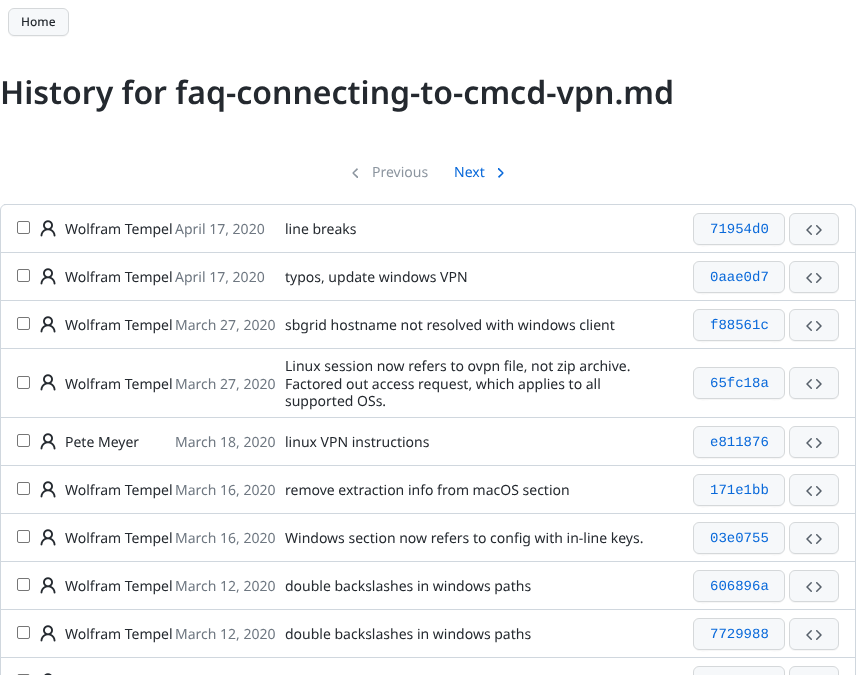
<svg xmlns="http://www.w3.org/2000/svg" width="856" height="675">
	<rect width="100%" height="100%" fill="#FFFFFF" />
	<path d="M8 30C8 39 16 37 22 37H55C61 37 69 39 69 30C69 33 66 36 63 36H14C11 36 8 33 8 30Z" fill="#F6F6F6" />
	<rect x="8.5" y="8.5" width="60" height="27" rx="5.5" fill="#F6F8FA" stroke="#D5D8DA" />
	<text x="21" y="26" font-family="Noto Sans" font-size="12" font-weight="500" fill="#24292F">Home</text>
	<text x="0" y="104" font-family="Noto Sans" font-size="32" font-weight="600" fill="#24292F">History for faq-connecting-to-cmcd-vpn.md</text>
	<path d="M358 178V176.5L354 173L358 169.5L357 168L352.5 172.5V173.5L357 178Z" fill="#8C959F" />
	<text x="372" y="177" font-family="Noto Sans" font-size="14" fill="#8C959F">Previous</text>
	<text x="454" y="177" font-family="Noto Sans" font-size="14" fill="#0969DA">Next</text>
	<path d="M498 168V169.5L502 173L498 176.5L499 178L503.5 173.5V172.5L499 168Z" fill="#0969DA" />
	<rect x="0.5" y="204.5" width="855" height="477" rx="5.5" fill="none" stroke="#D0D7DE" />
	<rect x="4" y="204" width="848" height="1" fill="#D0D7DE" />
	<rect x="17.5" y="221.5" width="12" height="12" rx="1.5" fill="none" stroke="#767676" />
	<image x="40" y="220" width="16" height="17" href="assets/img1.png" />
	<text x="65" y="234" font-family="Noto Sans" font-size="14" fill="#24292F">Wolfram Tempel</text>
	<text x="175" y="234" font-family="Noto Sans" font-size="14" fill="#6E7781">April 17, 2020</text>
	<text x="285" y="234" font-family="Noto Sans" font-size="14" fill="#24292F">line breaks</text>
	<path d="M693 239C693 249 706 246 712 246H766C772 246 785 249 785 239C785 242 782 245 779 245H699C696 245 693 242 693 239Z" fill="#F6F6F6" />
	<rect x="693.5" y="213.5" width="91" height="31" rx="5.5" fill="#F6F8FA" stroke="#D5D8DA" />
	<text x="710" y="233" font-family="Liberation Mono" font-size="14" fill="#0969DA">71954d0</text>
	<path d="M789 239C789 247 795 246 801 246H827C833 246 839 247 839 239C839 242 836 245 833 245H795C792 245 789 242 789 239Z" fill="#F6F6F6" />
	<rect x="789.5" y="213.5" width="49" height="31" rx="5.5" fill="#F6F8FA" stroke="#D5D8DA" />
	<image x="806" y="225" width="16" height="10" href="assets/img2.png" />
	<rect x="1" y="252" width="854" height="1" fill="#D0D7DE" />
	<rect x="17.5" y="269.5" width="12" height="12" rx="1.5" fill="none" stroke="#767676" />
	<image x="40" y="268" width="16" height="17" href="assets/img1.png" />
	<text x="65" y="282" font-family="Noto Sans" font-size="14" fill="#24292F">Wolfram Tempel</text>
	<text x="175" y="282" font-family="Noto Sans" font-size="14" fill="#6E7781">April 17, 2020</text>
	<text x="285" y="282" font-family="Noto Sans" font-size="14" fill="#24292F">typos, update windows VPN</text>
	<path d="M693 287C693 297 706 294 712 294H766C772 294 785 297 785 287C785 290 782 293 779 293H699C696 293 693 290 693 287Z" fill="#F6F6F6" />
	<rect x="693.5" y="261.5" width="91" height="31" rx="5.5" fill="#F6F8FA" stroke="#D5D8DA" />
	<text x="710" y="281" font-family="Liberation Mono" font-size="14" fill="#0969DA">0aae0d7</text>
	<path d="M789 287C789 295 795 294 801 294H827C833 294 839 295 839 287C839 290 836 293 833 293H795C792 293 789 290 789 287Z" fill="#F6F6F6" />
	<rect x="789.5" y="261.5" width="49" height="31" rx="5.5" fill="#F6F8FA" stroke="#D5D8DA" />
	<image x="806" y="273" width="16" height="10" href="assets/img2.png" />
	<rect x="1" y="300" width="854" height="1" fill="#D0D7DE" />
	<rect x="17.5" y="317.5" width="12" height="12" rx="1.5" fill="none" stroke="#767676" />
	<image x="40" y="316" width="16" height="17" href="assets/img1.png" />
	<text x="65" y="330" font-family="Noto Sans" font-size="14" fill="#24292F">Wolfram Tempel</text>
	<text x="175" y="330" font-family="Noto Sans" font-size="14" fill="#6E7781">March 27, 2020</text>
	<text x="285" y="330" font-family="Noto Sans" font-size="14" fill="#24292F">sbgrid hostname not resolved with windows client</text>
	<path d="M693 335C693 345 706 342 712 342H766C772 342 785 345 785 335C785 338 782 341 779 341H699C696 341 693 338 693 335Z" fill="#F6F6F6" />
	<rect x="693.5" y="309.5" width="91" height="31" rx="5.5" fill="#F6F8FA" stroke="#D5D8DA" />
	<text x="710" y="329" font-family="Liberation Mono" font-size="14" fill="#0969DA">f88561c</text>
	<path d="M789 335C789 343 795 342 801 342H827C833 342 839 343 839 335C839 338 836 341 833 341H795C792 341 789 338 789 335Z" fill="#F6F6F6" />
	<rect x="789.5" y="309.5" width="49" height="31" rx="5.5" fill="#F6F8FA" stroke="#D5D8DA" />
	<image x="806" y="321" width="16" height="10" href="assets/img2.png" />
	<rect x="1" y="348" width="854" height="1" fill="#D0D7DE" />
	<rect x="17.5" y="376.5" width="12" height="12" rx="1.5" fill="none" stroke="#767676" />
	<image x="40" y="374" width="16" height="17" href="assets/img1.png" />
	<text x="65" y="389" font-family="Noto Sans" font-size="14" fill="#24292F">Wolfram Tempel</text>
	<text x="175" y="389" font-family="Noto Sans" font-size="14" fill="#6E7781">March 27, 2020</text>
	<g font-family="Noto Sans" font-size="14" fill="#24292F">
		<text x="285" y="371">Linux session now refers to ovpn file, not zip archive.</text>
		<text x="285" y="389">Factored out access request, which applies to all</text>
		<text x="285" y="406">supported OSs.</text>
	</g>
	<path d="M693 393C693 403 706 400 712 400H766C772 400 785 403 785 393C785 396 782 399 779 399H699C696 399 693 396 693 393Z" fill="#F6F6F6" />
	<rect x="693.5" y="367.5" width="91" height="31" rx="5.5" fill="#F6F8FA" stroke="#D5D8DA" />
	<text x="710" y="387" font-family="Liberation Mono" font-size="14" fill="#0969DA">65fc18a</text>
	<path d="M789 393C789 401 795 400 801 400H827C833 400 839 401 839 393C839 396 836 399 833 399H795C792 399 789 396 789 393Z" fill="#F6F6F6" />
	<rect x="789.5" y="367.5" width="49" height="31" rx="5.5" fill="#F6F8FA" stroke="#D5D8DA" />
	<image x="806" y="379" width="16" height="10" href="assets/img2.png" />
	<rect x="1" y="417" width="854" height="1" fill="#D0D7DE" />
	<rect x="17.5" y="434.5" width="12" height="12" rx="1.5" fill="none" stroke="#767676" />
	<image x="40" y="433" width="16" height="17" href="assets/img1.png" />
	<text x="65" y="447" font-family="Noto Sans" font-size="14" fill="#24292F">Pete Meyer</text>
	<text x="175" y="447" font-family="Noto Sans" font-size="14" fill="#6E7781">March 18, 2020</text>
	<text x="285" y="447" font-family="Noto Sans" font-size="14" fill="#24292F">linux VPN instructions</text>
	<path d="M693 452C693 462 706 459 712 459H766C772 459 785 462 785 452C785 455 782 458 779 458H699C696 458 693 455 693 452Z" fill="#F6F6F6" />
	<rect x="693.5" y="426.5" width="91" height="31" rx="5.5" fill="#F6F8FA" stroke="#D5D8DA" />
	<text x="710" y="446" font-family="Liberation Mono" font-size="14" fill="#0969DA">e811876</text>
	<path d="M789 452C789 460 795 459 801 459H827C833 459 839 460 839 452C839 455 836 458 833 458H795C792 458 789 455 789 452Z" fill="#F6F6F6" />
	<rect x="789.5" y="426.5" width="49" height="31" rx="5.5" fill="#F6F8FA" stroke="#D5D8DA" />
	<image x="806" y="438" width="16" height="10" href="assets/img2.png" />
	<rect x="1" y="465" width="854" height="1" fill="#D0D7DE" />
	<rect x="17.5" y="482.5" width="12" height="12" rx="1.5" fill="none" stroke="#767676" />
	<image x="40" y="481" width="16" height="17" href="assets/img1.png" />
	<text x="65" y="495" font-family="Noto Sans" font-size="14" fill="#24292F">Wolfram Tempel</text>
	<text x="175" y="495" font-family="Noto Sans" font-size="14" fill="#6E7781">March 16, 2020</text>
	<text x="285" y="495" font-family="Noto Sans" font-size="14" fill="#24292F">remove extraction info from macOS section</text>
	<path d="M693 500C693 510 706 507 712 507H766C772 507 785 510 785 500C785 503 782 506 779 506H699C696 506 693 503 693 500Z" fill="#F6F6F6" />
	<rect x="693.5" y="474.5" width="91" height="31" rx="5.5" fill="#F6F8FA" stroke="#D5D8DA" />
	<text x="710" y="494" font-family="Liberation Mono" font-size="14" fill="#0969DA">171e1bb</text>
	<path d="M789 500C789 508 795 507 801 507H827C833 507 839 508 839 500C839 503 836 506 833 506H795C792 506 789 503 789 500Z" fill="#F6F6F6" />
	<rect x="789.5" y="474.5" width="49" height="31" rx="5.5" fill="#F6F8FA" stroke="#D5D8DA" />
	<image x="806" y="486" width="16" height="10" href="assets/img2.png" />
	<rect x="1" y="513" width="854" height="1" fill="#D0D7DE" />
	<rect x="17.5" y="530.5" width="12" height="12" rx="1.5" fill="none" stroke="#767676" />
	<image x="40" y="529" width="16" height="17" href="assets/img1.png" />
	<text x="65" y="543" font-family="Noto Sans" font-size="14" fill="#24292F">Wolfram Tempel</text>
	<text x="175" y="543" font-family="Noto Sans" font-size="14" fill="#6E7781">March 16, 2020</text>
	<text x="285" y="543" font-family="Noto Sans" font-size="14" fill="#24292F">Windows section now refers to config with in-line keys.</text>
	<path d="M693 548C693 558 706 555 712 555H766C772 555 785 558 785 548C785 551 782 554 779 554H699C696 554 693 551 693 548Z" fill="#F6F6F6" />
	<rect x="693.5" y="522.5" width="91" height="31" rx="5.5" fill="#F6F8FA" stroke="#D5D8DA" />
	<text x="710" y="542" font-family="Liberation Mono" font-size="14" fill="#0969DA">03e0755</text>
	<path d="M789 548C789 556 795 555 801 555H827C833 555 839 556 839 548C839 551 836 554 833 554H795C792 554 789 551 789 548Z" fill="#F6F6F6" />
	<rect x="789.5" y="522.5" width="49" height="31" rx="5.5" fill="#F6F8FA" stroke="#D5D8DA" />
	<image x="806" y="534" width="16" height="10" href="assets/img2.png" />
	<rect x="1" y="561" width="854" height="1" fill="#D0D7DE" />
	<rect x="17.5" y="578.5" width="12" height="12" rx="1.5" fill="none" stroke="#767676" />
	<image x="40" y="577" width="16" height="17" href="assets/img1.png" />
	<text x="65" y="591" font-family="Noto Sans" font-size="14" fill="#24292F">Wolfram Tempel</text>
	<text x="175" y="591" font-family="Noto Sans" font-size="14" fill="#6E7781">March 12, 2020</text>
	<text x="285" y="591" font-family="Noto Sans" font-size="14" fill="#24292F">double backslashes in windows paths</text>
	<path d="M693 596C693 606 706 603 712 603H766C772 603 785 606 785 596C785 599 782 602 779 602H699C696 602 693 599 693 596Z" fill="#F6F6F6" />
	<rect x="693.5" y="570.5" width="91" height="31" rx="5.5" fill="#F6F8FA" stroke="#D5D8DA" />
	<text x="710" y="590" font-family="Liberation Mono" font-size="14" fill="#0969DA">606896a</text>
	<path d="M789 596C789 604 795 603 801 603H827C833 603 839 604 839 596C839 599 836 602 833 602H795C792 602 789 599 789 596Z" fill="#F6F6F6" />
	<rect x="789.5" y="570.5" width="49" height="31" rx="5.5" fill="#F6F8FA" stroke="#D5D8DA" />
	<image x="806" y="582" width="16" height="10" href="assets/img2.png" />
	<rect x="1" y="609" width="854" height="1" fill="#D0D7DE" />
	<rect x="17.5" y="626.5" width="12" height="12" rx="1.5" fill="none" stroke="#767676" />
	<image x="40" y="625" width="16" height="17" href="assets/img1.png" />
	<text x="65" y="639" font-family="Noto Sans" font-size="14" fill="#24292F">Wolfram Tempel</text>
	<text x="175" y="639" font-family="Noto Sans" font-size="14" fill="#6E7781">March 12, 2020</text>
	<text x="285" y="639" font-family="Noto Sans" font-size="14" fill="#24292F">double backslashes in windows paths</text>
	<path d="M693 644C693 654 706 651 712 651H766C772 651 785 654 785 644C785 647 782 650 779 650H699C696 650 693 647 693 644Z" fill="#F6F6F6" />
	<rect x="693.5" y="618.5" width="91" height="31" rx="5.5" fill="#F6F8FA" stroke="#D5D8DA" />
	<text x="710" y="638" font-family="Liberation Mono" font-size="14" fill="#0969DA">7729988</text>
	<path d="M789 644C789 652 795 651 801 651H827C833 651 839 652 839 644C839 647 836 650 833 650H795C792 650 789 647 789 644Z" fill="#F6F6F6" />
	<rect x="789.5" y="618.5" width="49" height="31" rx="5.5" fill="#F6F8FA" stroke="#D5D8DA" />
	<image x="806" y="630" width="16" height="10" href="assets/img2.png" />
	<rect x="1" y="657" width="854" height="1" fill="#D0D7DE" />
	<rect x="17.5" y="674.5" width="12" height="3" rx="1.5" fill="none" stroke="#767676" />
	<image x="44" y="673" width="8" height="2" href="assets/img3.png" />
	<rect x="693.5" y="666.5" width="91" height="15" rx="5.5" fill="#F6F8FA" stroke="#D5D8DA" />
	<rect x="789.5" y="666.5" width="49" height="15" rx="5.5" fill="#F6F8FA" stroke="#D5D8DA" />
</svg>
